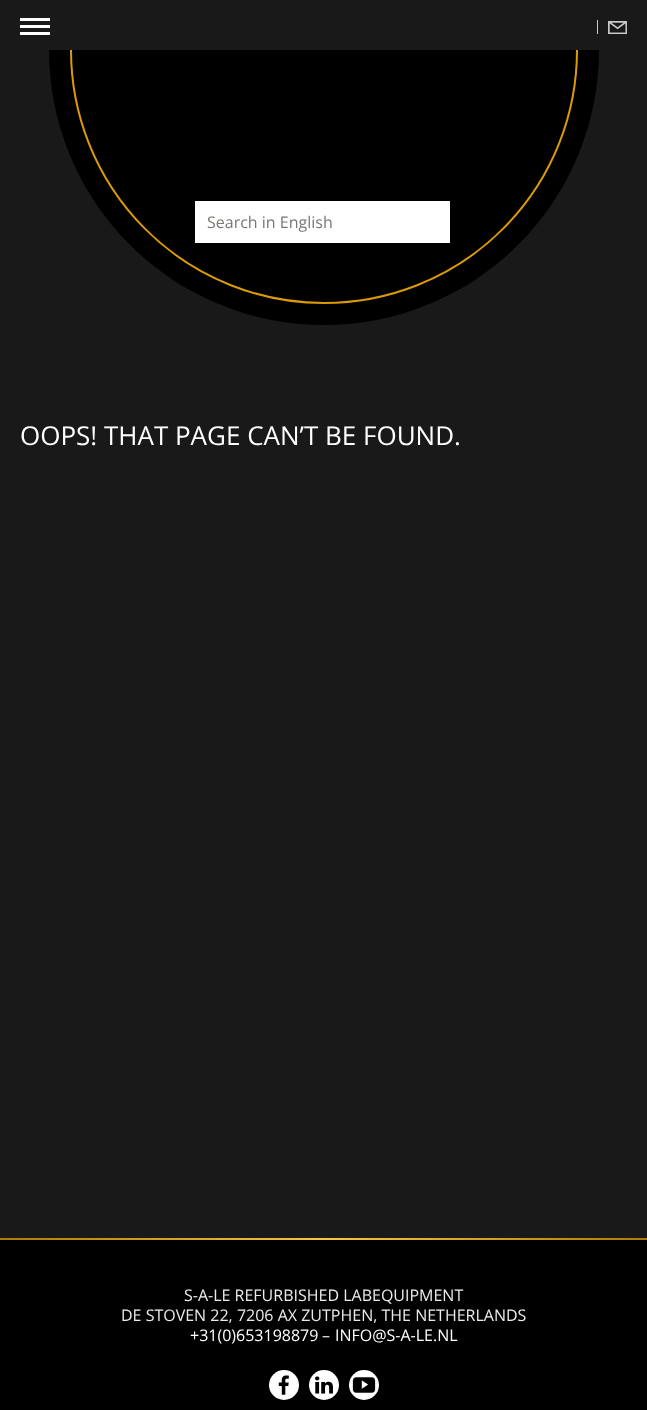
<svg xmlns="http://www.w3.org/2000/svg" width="647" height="1410">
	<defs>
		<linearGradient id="g1" gradientUnits="userSpaceOnUse" x1="0" y1="1239" x2="647" y2="1239"><stop offset="0" stop-color="#AC7C06" /><stop offset="0.5" stop-color="#F6C83F" /><stop offset="1" stop-color="#AC7C06" /></linearGradient>
	</defs>
	<rect width="100%" height="100%" fill="#191919" />
	<circle cx="324" cy="50" r="275" fill="#000000" />
	<circle cx="324" cy="50" r="253" fill="none" stroke="#DC9B05" stroke-width="2" />
	<rect x="49" y="0" width="550" height="50" fill="#191919" />
	<rect x="20" y="18" width="30" height="3" fill="#FFFFFF" />
	<rect x="20" y="25" width="30" height="3" fill="#FFFFFF" />
	<rect x="20" y="32" width="30" height="3" fill="#FFFFFF" />
	<rect x="597" y="20" width="1" height="14" fill="#CCCCCC" />
	<image x="608" y="21" width="19" height="13" href="assets/img1.png" />
	<rect x="195" y="201" width="255" height="42" fill="#FFFFFF" />
	<text x="207" y="228" font-family="Open Sans" font-size="16" fill="#787974">Search in English</text>
	<text x="20" y="445" font-family="Open Sans" font-size="26" fill="#FFFFFF">OOPS! THAT PAGE CAN’T BE FOUND.</text>
	<rect x="0" y="1240" width="647" height="170" fill="#000000" />
	<rect x="0" y="1238" width="647" height="2" fill="url(#g1)" />
	<g font-family="Open Sans" font-size="16" fill="#EBEBEB">
		<text x="184" y="1301">S-A-LE REFURBISHED LABEQUIPMENT</text>
		<text x="121" y="1321">DE STOVEN 22, 7206 AX ZUTPHEN, THE NETHERLANDS</text>
	</g>
	<text x="190" y="1341" font-family="Open Sans" font-size="16" fill="#FFFFFF">+31(0)653198879</text>
	<text x="322" y="1341" font-family="Open Sans" font-size="16" fill="#EBEBEB">–</text>
	<text x="335" y="1341" font-family="Open Sans" font-size="16" fill="#FFFFFF">INFO@S-A-LE.NL</text>
	<circle cx="284" cy="1385" r="15" fill="#FFFFFF" />
	<image x="278" y="1375" width="11" height="20" href="assets/img2.png" />
	<circle cx="324" cy="1385" r="15" fill="#FFFFFF" />
	<image x="315" y="1376" width="18" height="18" href="assets/img3.png" />
	<circle cx="364" cy="1385" r="15" fill="#FFFFFF" />
	<image x="352" y="1377" width="24" height="16" href="assets/img4.png" />
</svg>
